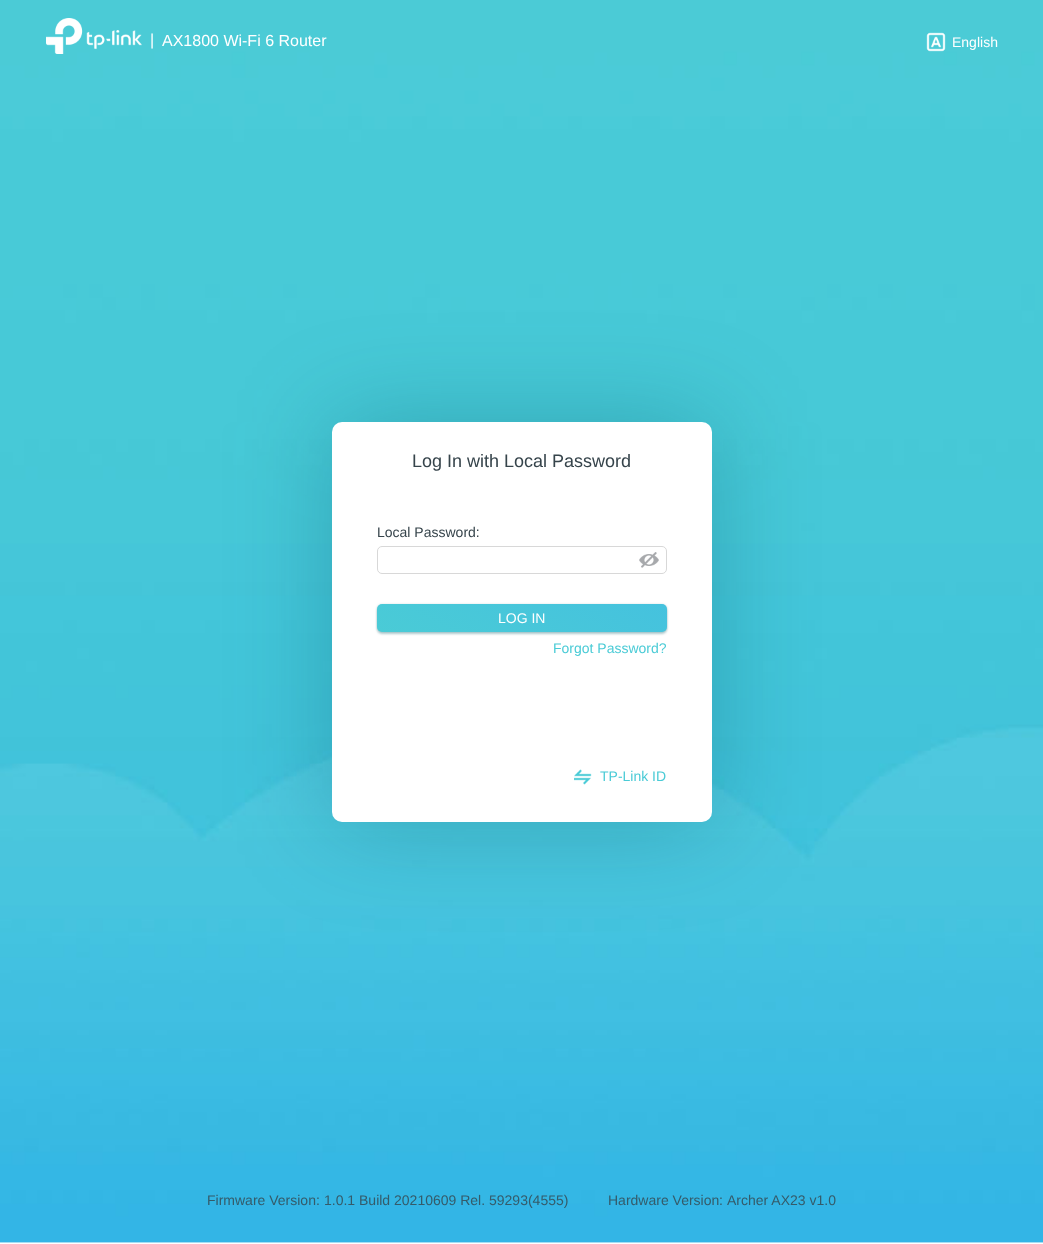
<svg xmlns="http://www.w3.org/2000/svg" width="1043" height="1244">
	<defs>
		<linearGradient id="g1" gradientUnits="userSpaceOnUse" x1="486" y1="688" x2="558" y2="548"><stop offset="0" stop-color="#4ACBD6" /><stop offset="1" stop-color="#45C2DE" /></linearGradient>
	</defs>
	<rect width="100%" height="100%" fill="#FFFFFF" />
	<image x="0" y="0" width="1043" height="1243" href="assets/img1.png" />
	<image x="46" y="18" width="96" height="36" href="assets/img2.png" />
	<g font-family="Liberation Sans" font-size="16" fill="#FFFFFF">
		<text x="150" y="45">|</text>
		<text x="162" y="46">AX1800 Wi-Fi 6 Router</text>
	</g>
	<image x="926" y="32" width="20" height="20" href="assets/img3.png" />
	<text x="952" y="47" font-family="Liberation Sans" font-size="14" fill="#FFFFFF">English</text>
	<rect x="332" y="422" width="380" height="400" rx="10" fill="#005564" fill-opacity="0.3" filter="blur(50px)" />
	<rect x="332" y="422" width="380" height="400" rx="10" fill="#FFFFFF" />
	<text x="412" y="467" font-family="Liberation Sans" font-size="18" fill="#36444B">Log In with Local Password</text>
	<text x="377" y="537" font-family="Liberation Sans" font-size="14" fill="#36444B">Local Password:</text>
	<rect x="377.5" y="546.5" width="289" height="27" rx="4.5" fill="none" stroke="#D8D8D8" />
	<image x="639" y="552" width="20" height="16" href="assets/img4.png" />
	<rect x="377" y="606" width="290" height="28" rx="5" fill="#005564" fill-opacity="0.3" filter="blur(1px)" />
	<rect x="377" y="604" width="290" height="28" rx="5" fill="#005564" fill-opacity="0.15" filter="blur(1px)" />
	<rect x="377" y="604" width="290" height="28" rx="5" fill="url(#g1)" />
	<text x="498" y="623" font-family="Liberation Sans" font-size="14" fill="#FFFFFF">LOG IN</text>
	<text x="553" y="653" font-family="Liberation Sans" font-size="14" fill="#4ACBD6">Forgot Password?</text>
	<image x="574" y="769" width="18" height="16" href="assets/img5.png" />
	<text x="600" y="781" font-family="Liberation Sans" font-size="14" fill="#4ACBD6">TP-Link ID</text>
	<g font-family="Liberation Sans" font-size="14" fill="#355B6A">
		<text x="207" y="1205">Firmware Version</text>
		<text x="316" y="1205">:</text>
		<text x="324" y="1205">1.0.1 Build 20210609 Rel. 59293(4555)</text>
		<text x="608" y="1205">Hardware Version</text>
		<text x="719" y="1205">:</text>
		<text x="727" y="1205">Archer AX23 v1.0</text>
	</g>
</svg>
